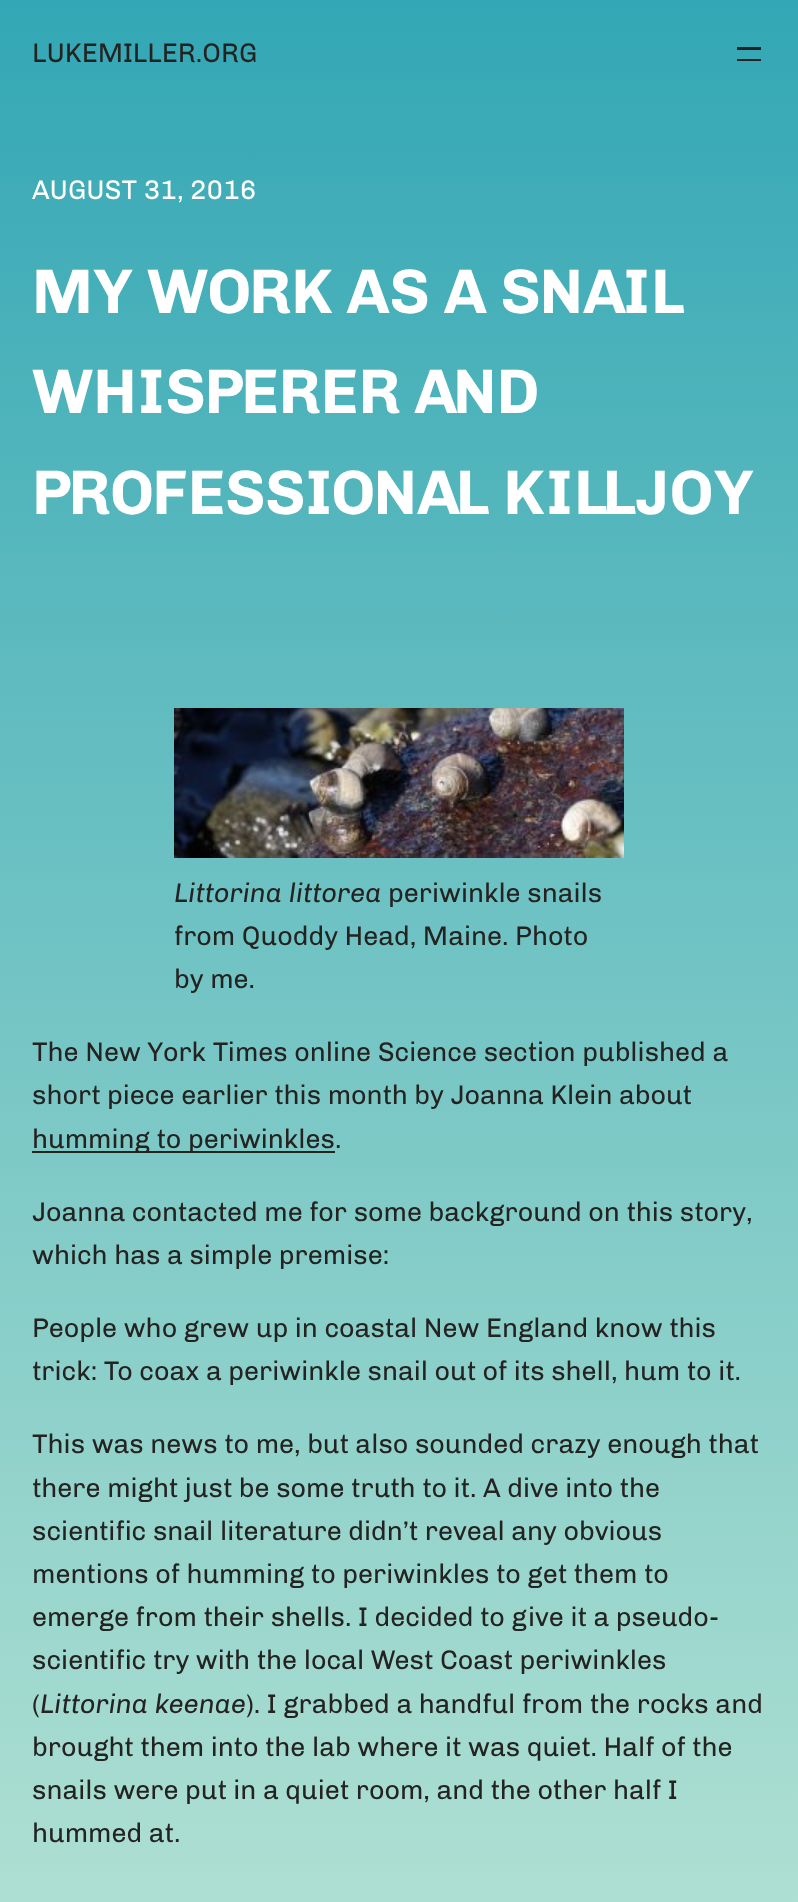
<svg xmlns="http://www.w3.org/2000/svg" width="798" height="1902">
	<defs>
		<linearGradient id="g1" gradientUnits="userSpaceOnUse" x1="399" y1="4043" x2="399" y2="0"><stop offset="0" stop-color="#FFFFFF" /><stop offset="0.5" stop-color="#B6E3D4" /><stop offset="1" stop-color="#33A7B5" /></linearGradient>
	</defs>
	<rect width="100%" height="100%" fill="#FFFFFF" />
	<rect x="0" y="0" width="798" height="1902" fill="url(#g1)" />
	<text x="32" y="62" font-family="Chivo" font-size="27" fill="#242321">LUKEMILLER.ORG</text>
	<rect x="737" y="47" width="24" height="3" fill="#242321" />
	<rect x="737" y="59" width="24" height="2" fill="#242321" />
	<text x="32" y="199" font-family="Chivo" font-size="27" fill="#FFFFFF">AUGUST 31, 2016</text>
	<g font-family="Chivo" font-size="63" font-weight="700" fill="#FFFFFF">
		<text x="32" y="313">MY WORK AS A SNAIL</text>
		<text x="32" y="413">WHISPERER AND</text>
		<text x="32" y="514">PROFESSIONAL KILLJOY</text>
	</g>
	<image x="174" y="708" width="450" height="150" href="assets/img1.png" />
	<text x="174" y="902" font-family="Chivo" font-size="27" font-style="italic" fill="#242321">Littorina littorea</text>
	<g font-family="Chivo" font-size="27" fill="#242321">
		<text x="388" y="902">periwinkle snails</text>
		<text x="174" y="945">from Quoddy Head, Maine. Photo</text>
		<text x="174" y="988">by me.</text>
		<text x="32" y="1061">The New York Times online Science section published a</text>
		<text x="32" y="1104">short piece earlier this month by Joanna Klein about</text>
	</g>
	<rect x="32" y="1151" width="303" height="2" fill="#242321" />
	<g font-family="Chivo" font-size="27" fill="#242321">
		<text x="32" y="1148">humming to periwinkles.</text>
		<text x="32" y="1221">Joanna contacted me for some background on this story,</text>
		<text x="32" y="1264">which has a simple premise:</text>
		<text x="32" y="1337">People who grew up in coastal New England know this</text>
		<text x="32" y="1380">trick: To coax a periwinkle snail out of its shell, hum to it.</text>
		<text x="32" y="1453">This was news to me, but also sounded crazy enough that</text>
		<text x="32" y="1497">there might just be some truth to it. A dive into the</text>
		<text x="32" y="1540">scientific snail literature didn’t reveal any obvious</text>
		<text x="32" y="1583">mentions of humming to periwinkles to get them to</text>
		<text x="32" y="1626">emerge from their shells. I decided to give it a pseudo-</text>
		<text x="32" y="1669">scientific try with the local West Coast periwinkles</text>
		<text x="32" y="1713">(</text>
	</g>
	<text x="40" y="1713" font-family="Chivo" font-size="27" font-style="italic" fill="#242321">Littorina keenae</text>
	<g font-family="Chivo" font-size="27" fill="#242321">
		<text x="246" y="1713">). I grabbed a handful from the rocks and</text>
		<text x="32" y="1756">brought them into the lab where it was quiet. Half of the</text>
		<text x="32" y="1799">snails were put in a quiet room, and the other half I</text>
		<text x="32" y="1842">hummed at.</text>
	</g>
</svg>
